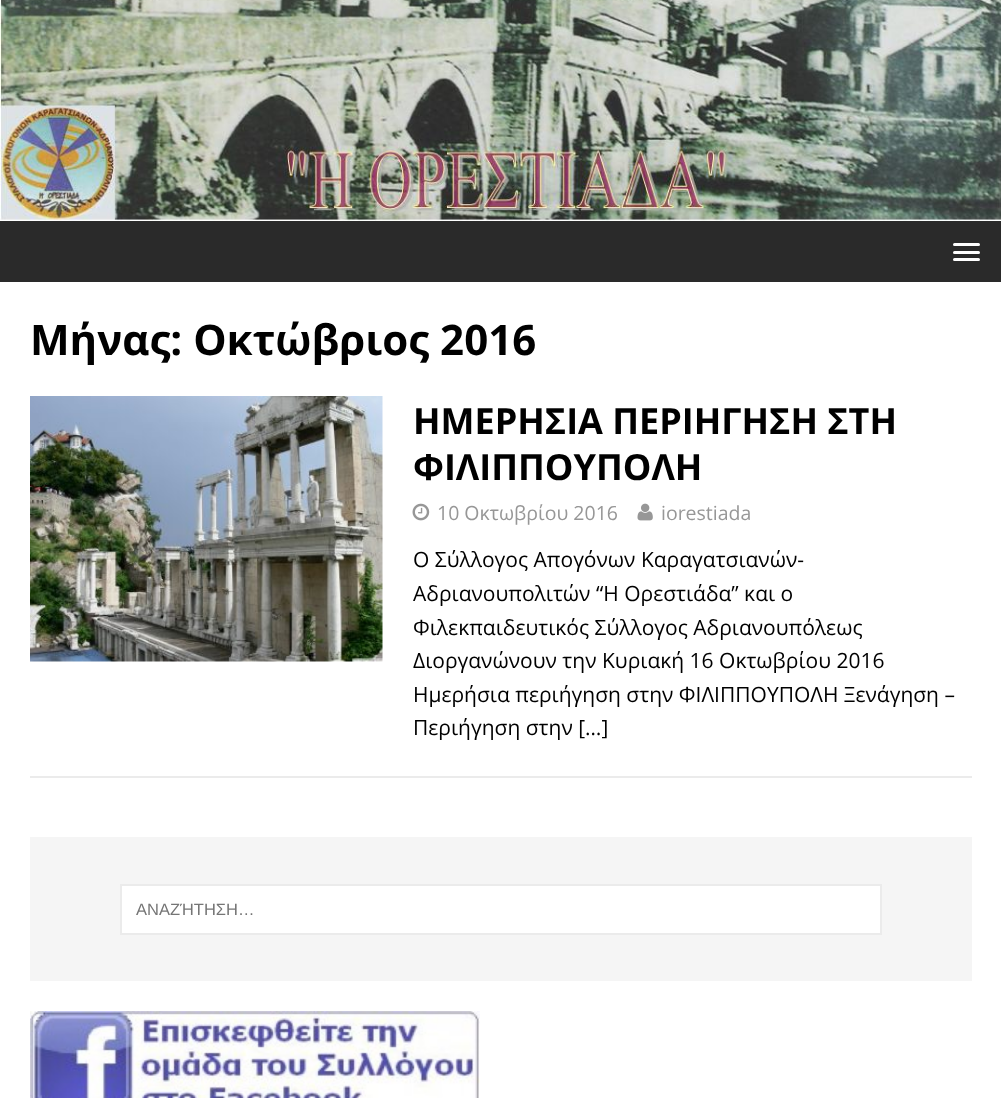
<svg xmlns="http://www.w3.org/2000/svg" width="1001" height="1098">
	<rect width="100%" height="100%" fill="#FFFFFF" />
	<image x="0" y="0" width="1001" height="221" href="assets/img1.png" />
	<rect x="0" y="221" width="1001" height="61" fill="#2A2A2A" />
	<rect x="953" y="243" width="27" height="3" rx="1.5" fill="#FFFFFF" />
	<rect x="953" y="251" width="27" height="3" rx="1.5" fill="#FFFFFF" />
	<rect x="953" y="258" width="27" height="3" rx="1.5" fill="#FFFFFF" />
	<text x="30" y="355" font-family="Open Sans" font-size="42" font-weight="700" fill="#000000">Μήνας: Οκτώβριος 2016</text>
	<rect x="30" y="776" width="942" height="2" fill="#EBEBEB" />
	<image x="30" y="396" width="353" height="266" href="assets/img2.png" />
	<g font-family="Open Sans" font-size="36" font-weight="700" fill="#000000">
		<text x="413" y="434">ΗΜΕΡΗΣΙΑ ΠΕΡΙΗΓΗΣΗ ΣΤΗ</text>
		<text x="413" y="480">ΦΙΛΙΠΠΟΥΠΟΛΗ</text>
	</g>
	<image x="412" y="503" width="18" height="18" href="assets/img3.png" />
	<text x="437" y="520" font-family="Open Sans" font-size="19.5" fill="#979797">10 Οκτωβρίου 2016</text>
	<image x="637" y="503" width="16" height="18" href="assets/img4.png" />
	<text x="661" y="520" font-family="Open Sans" font-size="19.5" fill="#979797">iorestiada</text>
	<g font-family="Open Sans" font-size="21" fill="#000000">
		<text x="413" y="567">Ο Σύλλογος Απογόνων Καραγατσιανών-</text>
		<text x="413" y="601">Αδριανουπολιτών “H Ορεστιάδα” και ο</text>
		<text x="413" y="635">Φιλεκπαιδευτικός Σύλλογος Αδριανουπόλεως</text>
		<text x="413" y="668">Διοργανώνουν την Κυριακή 16 Οκτωβρίου 2016</text>
		<text x="413" y="702">Ημερήσια περιήγηση στην ΦΙΛΙΠΠΟΥΠΟΛΗ Ξενάγηση –</text>
		<text x="413" y="735">Περιήγηση στην […]</text>
	</g>
	<rect x="30" y="837" width="942" height="144" fill="#F5F5F5" />
	<rect x="121" y="885" width="760" height="49" fill="#FFFFFF" stroke="#EBEBEB" stroke-width="2" />
	<text x="136" y="915" font-family="Liberation Sans" font-size="16.5" fill="#757575">ΑΝΑΖΉΤΗΣΗ…</text>
	<image x="30" y="1011" width="450" height="87" href="assets/img5.png" />
</svg>
